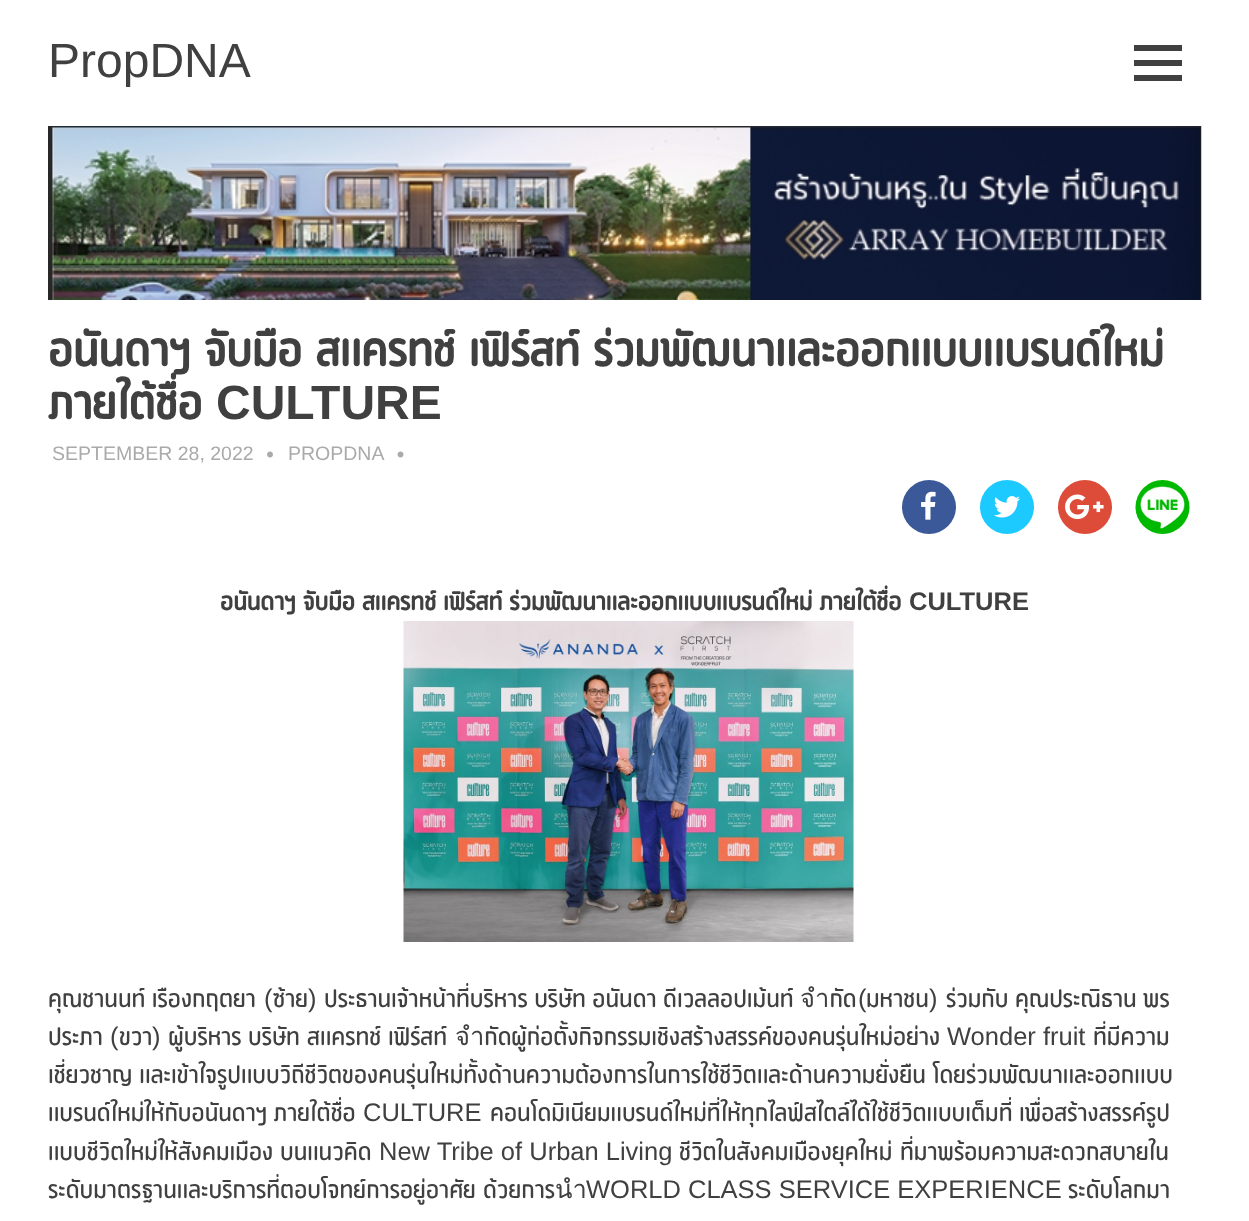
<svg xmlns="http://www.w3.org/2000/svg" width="1249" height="1221">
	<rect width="100%" height="100%" fill="#FFFFFF" />
	<text x="48" y="77" font-family="Liberation Sans" font-size="48" fill="#404040">PropDNA</text>
	<path d="M1134 81V75H1182V81ZM1134 45H1182V51H1134ZM1134 66V60H1182V66Z" fill="#404040" />
	<image x="48" y="126" width="1154" height="174" href="assets/img1.png" />
	<g font-family="'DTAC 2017'" font-size="48" font-weight="700" fill="#404040">
		<text x="48" y="366" word-spacing="3">อนันดาฯ จับมือ สแครทช์ เฟิร์สท์ ร่วมพัฒนาและออกแบบแบรนด์ใหม่</text>
		<text x="48" y="419">ภายใต้ชื่อ</text>
	</g>
	<text x="216" y="419" font-family="Liberation Sans" font-size="48" font-weight="700" fill="#404040">CULTURE</text>
	<text x="52" y="460" font-family="Liberation Sans" font-size="19.5" fill="#AAAAAA">SEPTEMBER 28, 2022</text>
	<image x="267" y="451" width="6" height="7" href="assets/img2.png" />
	<text x="288" y="460" font-family="Liberation Sans" font-size="19.5" fill="#AAAAAA">PROPDNA</text>
	<image x="397" y="451" width="7" height="7" href="assets/img3.png" />
	<circle cx="929" cy="507" r="27" fill="#3B5998" />
	<image x="921" y="491" width="15" height="29" href="assets/img4.png" />
	<circle cx="1007" cy="507" r="27" fill="#1DCAFF" />
	<image x="994" y="496" width="26" height="22" href="assets/img5.png" />
	<circle cx="1085" cy="507" r="27" fill="#DD4B39" />
	<image x="1065" y="494" width="39" height="26" href="assets/img6.png" />
	<image x="1135" y="480" width="55" height="54" href="assets/img7.png" />
	<text x="220" y="610" word-spacing="1.5" font-family="'DTAC 2017'" font-size="25.5" font-weight="700" fill="#404040">อนันดาฯ จับมือ สแครทช์ เฟิร์สท์ ร่วมพัฒนาและออกแบบแบรนด์ใหม่ ภายใต้ชื่อ</text>
	<text x="909" y="610" font-family="Liberation Sans" font-size="25.5" font-weight="700" fill="#404040">CULTURE</text>
	<image x="403" y="621" width="451" height="321" href="assets/img8.png" />
	<text x="48" y="1007" word-spacing="1" font-family="'DTAC 2017'" font-size="25.5" fill="#404040">คุณชานนท์ เรืองกฤตยา</text>
	<text x="264" y="1007" font-family="Liberation Sans" font-size="25.5" fill="#404040">(</text>
	<g font-family="'DTAC 2017'" font-size="25.5" fill="#404040">
		<text x="273" y="1007">ซ้าย</text>
		<text x="324" y="1007" word-spacing="1">ประธานเจ้าหน้าที่บริหาร บริษัท อนันดา ดีเวลลอปเม้นท์ จำกัด</text>
		<text x="946" y="1007" word-spacing="1">ร่วมกับ คุณประณิธาน พร</text>
	</g>
	<g font-family="Liberation Sans" font-size="25.5" fill="#404040">
		<text x="308" y="1007">)</text>
		<text x="858" y="1007">(</text>
	</g>
	<text x="866" y="1007" font-family="'DTAC 2017'" font-size="25.5" fill="#404040">มหาชน</text>
	<text x="929" y="1007" font-family="Liberation Sans" font-size="25.5" fill="#404040">)</text>
	<text x="48" y="1045" font-family="'DTAC 2017'" font-size="25.5" fill="#404040">ประภา</text>
	<text x="110" y="1045" font-family="Liberation Sans" font-size="25.5" fill="#404040">(</text>
	<text x="119" y="1045" font-family="'DTAC 2017'" font-size="25.5" fill="#404040">ขวา</text>
	<text x="152" y="1045" font-family="Liberation Sans" font-size="25.5" fill="#404040">)</text>
	<g font-family="'DTAC 2017'" font-size="25.5" fill="#404040">
		<text x="168" y="1045">ผู้บริหาร</text>
		<text x="248" y="1045">บริษัท</text>
		<text x="307" y="1045">สแครทช์</text>
		<text x="388" y="1045">เฟิร์สท์</text>
		<text x="455" y="1045">จำกัด</text>
		<text x="511" y="1045">ผู้ก่อตั้งกิจกรรมเชิงสร้างสรรค์ของคนรุ่นใหม่อย่าง</text>
	</g>
	<text x="947" y="1045" font-family="Liberation Sans" font-size="25.5" fill="#404040">Wonder fruit</text>
	<g font-family="'DTAC 2017'" font-size="25.5" fill="#404040">
		<text x="1093" y="1045">ที่มีความ</text>
		<text x="48" y="1083" word-spacing="1.5">เชี่ยวชาญ และเข้าใจรูปแบบวิถีชีวิตของคนรุ่นใหม่ทั้งด้านความต้องการในการใช้ชีวิตและด้านความยั่งยืน โดยร่วมพัฒนาและออกแบบ</text>
		<text x="48" y="1121" word-spacing="1">แบรนด์ใหม่ให้กับอนันดาฯ ภายใต้ชื่อ</text>
	</g>
	<text x="363" y="1121" font-family="Liberation Sans" font-size="25.5" fill="#404040">CULTURE</text>
	<g font-family="'DTAC 2017'" font-size="25.5" fill="#404040">
		<text x="490" y="1121" word-spacing="1">คอนโดมิเนียมแบรนด์ใหม่ที่ให้ทุกไลฟ์สไตล์ได้ใช้ชีวิตแบบเต็มที่ เพื่อสร้างสรรค์รูป</text>
		<text x="48" y="1160">แบบชีวิตใหม่ให้สังคมเมือง</text>
		<text x="280" y="1160">บนแนวคิด</text>
	</g>
	<text x="379" y="1160" font-family="Liberation Sans" font-size="25.5" fill="#404040">New Tribe of Urban Living</text>
	<g font-family="'DTAC 2017'" font-size="25.5" fill="#404040">
		<text x="679" y="1160">ชีวิตในสังคมเมืองยุคใหม่</text>
		<text x="900" y="1160">ที่มาพร้อมความสะดวกสบายใน</text>
		<text x="48" y="1198">ระดับมาตรฐานและบริการที่ตอบโจทย์การอยู่อาศัย</text>
		<text x="483" y="1198">ด้วยการนำ</text>
	</g>
	<text x="586" y="1198" font-family="Liberation Sans" font-size="25.5" fill="#404040">WORLD CLASS SERVICE EXPERIENCE</text>
	<text x="1068" y="1198" font-family="'DTAC 2017'" font-size="25.5" fill="#404040">ระดับโลกมา</text>
</svg>
